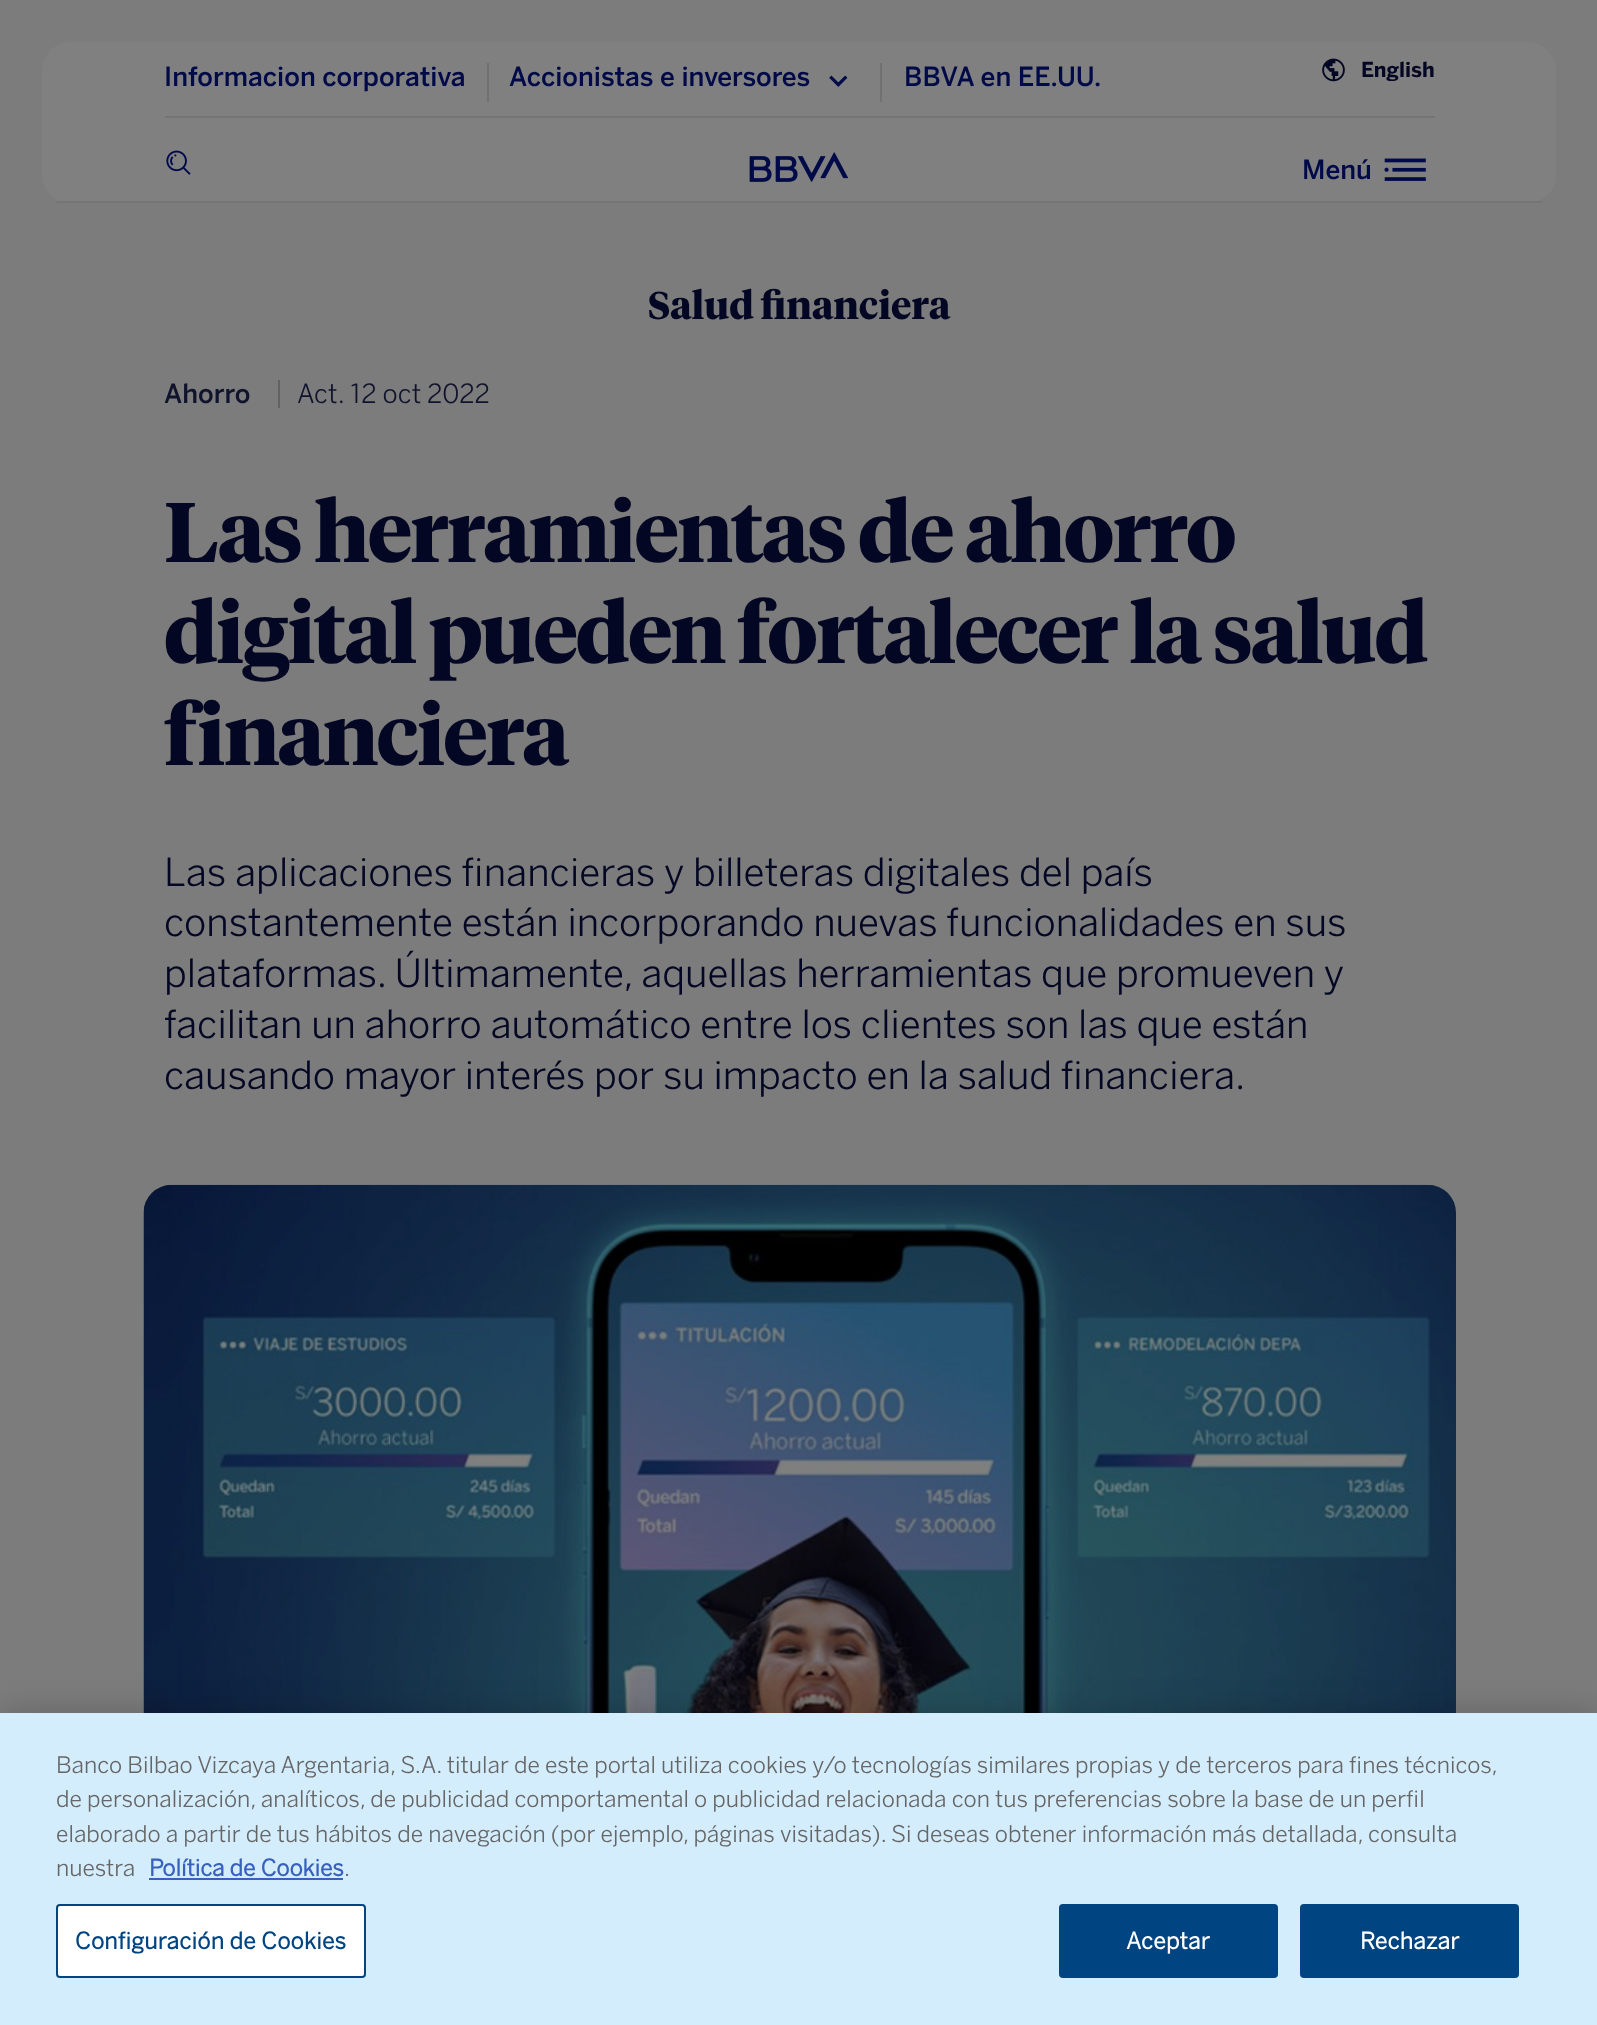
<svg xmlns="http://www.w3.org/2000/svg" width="1597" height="2025">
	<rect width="100%" height="100%" fill="#7C7C7C" />
	<rect x="42" y="42" width="1514" height="161" rx="28" fill="#808080" />
	<rect x="56" y="201" width="1486" height="2" fill="#757575" />
	<rect x="165" y="116" width="1270" height="2" fill="#757575" />
	<rect x="487" y="63" width="2" height="39" fill="#717171" />
	<text x="164" y="86" font-family="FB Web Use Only" font-size="26.25" font-weight="500" fill="#000A49">Informacion corporativa</text>
	<rect x="880" y="63" width="2" height="39" fill="#717171" />
	<text x="509" y="86" font-family="FB Web Use Only" font-size="26.25" font-weight="500" fill="#000A49">Accionistas e inversores</text>
	<image x="829" y="75" width="19" height="12" href="assets/img1.png" />
	<text x="904" y="86" font-family="FB Web Use Only" font-size="26.25" font-weight="500" fill="#000A49">BBVA en EE.UU.</text>
	<image x="1322" y="58" width="23" height="24" href="assets/img2.png" />
	<text x="1361" y="77" font-family="FB Web Use Only" font-size="20.5" font-weight="700" fill="#040723">English</text>
	<image x="749" y="152" width="99" height="30" href="assets/img3.png" />
	<image x="166" y="150" width="25" height="25" href="assets/img4.png" />
	<text x="1302" y="179" font-family="FB Web Use Only" font-size="26.25" font-weight="500" fill="#000A49">Menú</text>
	<image x="1384" y="158" width="42" height="23" href="assets/img5.png" />
	<text x="648" y="319" font-family="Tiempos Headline" font-size="38.5" font-weight="700" fill="#040723">Salud financiera</text>
	<text x="164" y="403" font-family="FB Web Use Only" font-size="26.25" font-weight="500" fill="#10132C">Ahorro</text>
	<rect x="278" y="380" width="2" height="28" fill="#626262" />
	<text x="297" y="403" font-family="FB Web Use Only" font-size="26.25" font-weight="300" fill="#10132C">Act. 12 oct 2022</text>
	<g font-family="Tiempos Headline" font-size="84" font-weight="700" letter-spacing="-1.75" fill="#040723">
		<text x="164" y="562">Las herramientas de ahorro</text>
		<text x="164" y="663">digital pueden fortalecer la salud</text>
		<text x="164" y="765">financiera</text>
	</g>
	<g font-family="FB Web Use Only" font-size="38.5" font-weight="300" fill="#040723">
		<text x="164" y="886">Las aplicaciones financieras y billeteras digitales del país</text>
		<text x="164" y="936">constantemente están incorporando nuevas funcionalidades en sus</text>
		<text x="164" y="987">plataformas. Últimamente, aquellas herramientas que promueven y</text>
		<text x="164" y="1038">facilitan un ahorro automático entre los clientes son las que están</text>
		<text x="164" y="1089">causando mayor interés por su impacto en la salud financiera.</text>
	</g>
	<image x="143" y="1184" width="1313" height="529" href="assets/img6.png" />
	<rect x="0" y="1713" width="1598" height="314" fill="#000000" fill-opacity="0.2" filter="blur(16px)" />
	<rect x="0" y="1713" width="1597" height="312" fill="#D4EDFC" />
	<g font-family="FB Web Use Only" font-size="22.75" font-weight="300" fill="#666666">
		<text x="56" y="1773">Banco Bilbao Vizcaya Argentaria, S.A. titular de este portal utiliza cookies y/o tecnologías similares propias y de terceros para fines técnicos,</text>
		<text x="56" y="1807">de personalización, analíticos, de publicidad comportamental o publicidad relacionada con tus preferencias sobre la base de un perfil</text>
		<text x="56" y="1842">elaborado a partir de tus hábitos de navegación (por ejemplo, páginas visitadas). Si deseas obtener información más detallada, consulta</text>
		<text x="56" y="1876">nuestra</text>
	</g>
	<text x="149" y="1876" font-family="'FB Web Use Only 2'" font-size="22.75" font-weight="700" fill="#3860BE">Política de Cookies</text>
	<rect x="149" y="1878" width="194" height="2" fill="#3860BE" />
	<text x="344" y="1876" font-family="FB Web Use Only" font-size="22.75" font-weight="300" fill="#666666">.</text>
	<rect x="57" y="1905" width="308" height="72" rx="3" fill="#FFFFFF" stroke="#004481" stroke-width="2" />
	<text x="75" y="1949" font-family="'FB Web Use Only 2'" font-size="22.75" font-weight="700" letter-spacing="0.25" fill="#004481">Configuración de Cookies</text>
	<rect x="1060" y="1905" width="217" height="72" rx="3" fill="#004481" stroke="#004481" stroke-width="2" />
	<text x="1126" y="1949" font-family="'FB Web Use Only 2'" font-size="22.75" font-weight="700" letter-spacing="0.25" fill="#FFFFFF">Aceptar</text>
	<rect x="1301" y="1905" width="217" height="72" rx="3" fill="#004481" stroke="#004481" stroke-width="2" />
	<text x="1360" y="1949" font-family="'FB Web Use Only 2'" font-size="22.75" font-weight="700" letter-spacing="0.25" fill="#FFFFFF">Rechazar</text>
</svg>
